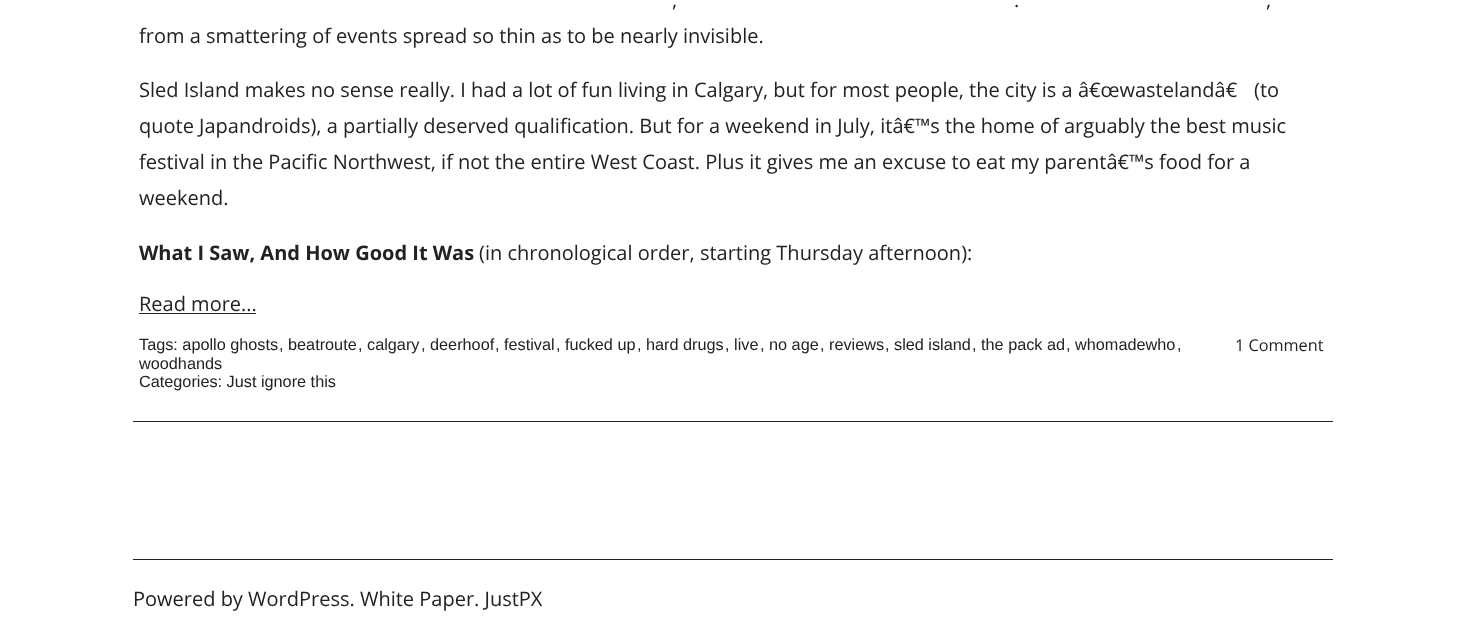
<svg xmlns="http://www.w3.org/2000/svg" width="1465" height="634">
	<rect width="100%" height="100%" fill="#FFFFFF" />
	<rect x="133" y="421" width="1200" height="1" fill="#232122" />
	<g font-family="Open Sans" font-size="20" fill="#232122">
		<text x="672" y="7">,</text>
		<text x="1014" y="7">.</text>
		<text x="1266" y="7">,</text>
		<text x="139" y="43">from a smattering of events spread so thin as to be nearly invisible.</text>
		<text x="139" y="97">Sled Island makes no sense really. I had a lot of fun living in Calgary, but for most people, the city is a â€œwastelandâ€</text>
		<text x="1254" y="97">(to</text>
		<text x="139" y="133">quote Japandroids), a partially deserved qualification. But for a weekend in July, itâ€™s the home of arguably the best music</text>
		<text x="139" y="169">festival in the Pacific Northwest, if not the entire West Coast. Plus it gives me an excuse to eat my parentâ€™s food for a</text>
		<text x="139" y="205">weekend.</text>
	</g>
	<text x="139" y="260" font-family="Open Sans" font-size="20" font-weight="700" fill="#232122">What I Saw, And How Good It Was</text>
	<g font-family="Open Sans" font-size="20" fill="#232122">
		<text x="479" y="260">(in chronological order, starting Thursday afternoon):</text>
		<text x="139" y="311">Read more...</text>
	</g>
	<rect x="139" y="313" width="117" height="1" fill="#232122" />
	<g font-family="Liberation Sans" font-size="16.25" fill="#232122">
		<text x="139" y="350">Tags: apollo ghosts</text>
		<text x="279" y="350">, beatroute</text>
		<text x="358" y="350">, calgary</text>
		<text x="421" y="350">, deerhoof</text>
		<text x="495" y="350">, festival</text>
		<text x="556" y="350">, fucked up</text>
		<text x="637" y="350">, hard drugs</text>
		<text x="725" y="350">, live</text>
		<text x="760" y="350">, no age</text>
		<text x="820" y="350">, reviews</text>
		<text x="885" y="350">, sled island</text>
		<text x="972" y="350">, the pack ad</text>
		<text x="1066" y="350">, whomadewho</text>
		<text x="1177" y="350">,</text>
		<text x="139" y="369">woodhands</text>
		<text x="139" y="387">Categories: Just ignore this</text>
	</g>
	<text x="1235" y="351" font-family="Open Sans" font-size="16.25" fill="#232122">1 Comment</text>
	<rect x="133" y="559" width="1200" height="1" fill="#232122" />
	<text x="133" y="606" font-family="Open Sans" font-size="20" fill="#232122">Powered by WordPress. White Paper. JustPX</text>
</svg>
